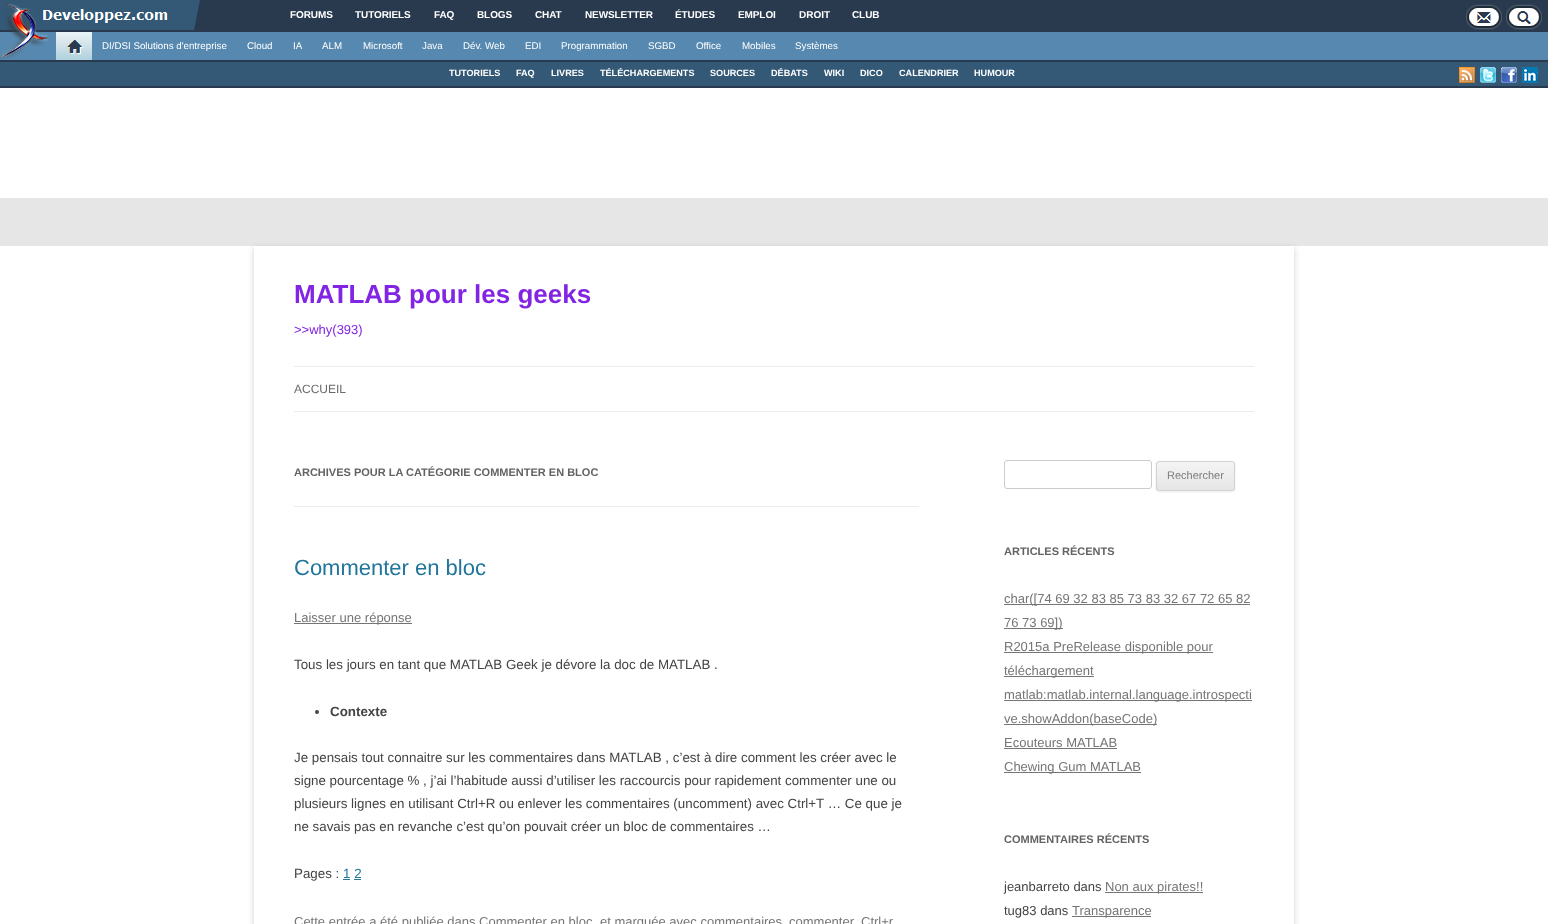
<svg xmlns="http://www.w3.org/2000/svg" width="1548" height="924">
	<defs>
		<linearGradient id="g1" gradientUnits="userSpaceOnUse" x1="74" y1="32" x2="74" y2="60"><stop offset="0" stop-color="#EAF5F8" /><stop offset="0.37" stop-color="#D8E6EC" /><stop offset="1" stop-color="#AED1DD" /></linearGradient>
		<clipPath id="clip1"><path d="M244 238H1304V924H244ZM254 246H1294V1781H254Z" clip-rule="evenodd" /></clipPath>
		<clipPath id="clip2"><rect x="1156" y="461" width="79" height="30" rx="3" /></clipPath>
		<linearGradient id="g2" gradientUnits="userSpaceOnUse" x1="1196" y1="462" x2="1196" y2="490"><stop offset="0" stop-color="#F4F4F4" /><stop offset="1" stop-color="#E6E6E6" /></linearGradient>
	</defs>
	<rect width="100%" height="100%" fill="#E6E6E6" />
	<rect x="200" y="0" width="1348" height="30" fill="#293A4E" />
	<rect x="0" y="0" width="200" height="30" fill="#345976" />
	<image x="42" y="9" width="126" height="14" href="assets/img2.png" />
	<rect x="0" y="32" width="1548" height="28" fill="#5789B0" />
	<rect x="0" y="30" width="1548" height="2" fill="#293A4E" />
	<image x="0" y="4" width="48" height="55" href="assets/img1.png" />
	<path d="M200 30H194L200 0Z" fill="#293A4E" />
	<g font-family="Liberation Sans" font-size="10" font-weight="700" letter-spacing="-0.1" fill="#FFFFFF">
		<text x="290" y="18">FORUMS</text>
		<text x="355" y="18">TUTORIELS</text>
		<text x="434" y="18">FAQ</text>
		<text x="477" y="18">BLOGS</text>
		<text x="535" y="18">CHAT</text>
		<text x="585" y="18">NEWSLETTER</text>
		<text x="675" y="18">ÉTUDES</text>
		<text x="738" y="18">EMPLOI</text>
	</g>
	<text x="799" y="18" font-family="Liberation Sans" font-size="10" font-weight="700" fill="#FFFFFF">DROIT</text>
	<text x="852" y="18" font-family="Liberation Sans" font-size="10" font-weight="700" letter-spacing="-0.1" fill="#FFFFFF">CLUB</text>
	<image x="1466" y="4" width="36" height="26" href="assets/img3.png" />
	<image x="1506" y="4" width="36" height="26" href="assets/img4.png" />
	<rect x="56" y="32" width="36" height="28" fill="url(#g1)" />
	<image x="67" y="40" width="16" height="14" href="assets/img5.png" />
	<g font-family="Liberation Sans" font-size="9.75" fill="#FFFFFF">
		<text x="102" y="49">DI/DSI Solutions d'entreprise</text>
		<text x="247" y="49">Cloud</text>
		<text x="293" y="49">IA</text>
		<text x="322" y="49">ALM</text>
		<text x="363" y="49">Microsoft</text>
		<text x="422" y="49">Java</text>
		<text x="463" y="49">Dév. Web</text>
		<text x="525" y="49">EDI</text>
		<text x="561" y="49">Programmation</text>
		<text x="648" y="49">SGBD</text>
		<text x="696" y="49">Office</text>
		<text x="742" y="49">Mobiles</text>
		<text x="795" y="49">Systèmes</text>
	</g>
	<rect x="0" y="62" width="1548" height="24" fill="#345976" />
	<rect x="0" y="60" width="1548" height="2" fill="#293A4E" />
	<rect x="0" y="86" width="1548" height="2" fill="#293A4E" />
	<g font-family="Liberation Sans" font-size="9.1" font-weight="700" fill="#FFFFFF">
		<text x="449" y="76">TUTORIELS</text>
		<text x="516" y="76">FAQ</text>
		<text x="551" y="76">LIVRES</text>
		<text x="600" y="76">TÉLÉCHARGEMENTS</text>
		<text x="710" y="76">SOURCES</text>
		<text x="771" y="76">DÉBATS</text>
		<text x="824" y="76">WIKI</text>
		<text x="860" y="76">DICO</text>
		<text x="899" y="76">CALENDRIER</text>
		<text x="974" y="76">HUMOUR</text>
	</g>
	<image x="1459" y="67" width="16" height="16" href="assets/img6.png" />
	<image x="1480" y="67" width="16" height="16" href="assets/img7.png" />
	<image x="1501" y="67" width="16" height="16" href="assets/img8.png" />
	<image x="1522" y="67" width="16" height="16" href="assets/img9.png" />
	<rect x="0" y="88" width="1548" height="110" fill="#FFFFFF" />
	<rect x="0" y="246" width="1548" height="678" fill="#FFFFFF" />
	<g clip-path="url(#clip1)">
		<rect x="254" y="248" width="1040" height="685" fill="#646464" fill-opacity="0.3" filter="blur(3px)" />
	</g>
	<text x="294" y="303" font-family="Liberation Sans" font-size="26" font-weight="700" fill="#8224E3">MATLAB pour les geeks</text>
	<text x="294" y="334" font-family="Liberation Sans" font-size="13" fill="#8224E3">&gt;&gt;why(393)</text>
	<rect x="294" y="366" width="960" height="1" fill="#EDEDED" />
	<rect x="294" y="411" width="960" height="1" fill="#EDEDED" />
	<text x="294" y="393" font-family="Liberation Sans" font-size="12" fill="#6A6A6A">ACCUEIL</text>
	<rect x="294" y="506" width="625" height="1" fill="#EDEDED" />
	<text x="294" y="476" font-family="Liberation Sans" font-size="11" font-weight="700" fill="#636363">ARCHIVES POUR LA CATÉGORIE COMMENTER EN BLOC</text>
	<text x="294" y="575" font-family="Liberation Sans" font-size="22" fill="#21759B">Commenter en bloc</text>
	<rect x="294" y="623" width="118" height="1" fill="#757575" />
	<text x="294" y="622" font-family="Liberation Sans" font-size="13" fill="#757575">Laisser une réponse</text>
	<text x="294" y="669" font-family="Liberation Sans" font-size="13.35" fill="#444444">Tous les jours en tant que MATLAB Geek je dévore la doc de MATLAB .</text>
	<circle cx="317" cy="712" r="2" fill="#444444" />
	<text x="330" y="716" font-family="Liberation Sans" font-size="13.35" font-weight="700" fill="#444444">Contexte</text>
	<g font-family="Liberation Sans" font-size="13.35" fill="#444444">
		<text x="294" y="762">Je pensais tout connaitre sur les commentaires dans MATLAB , c’est à dire comment les créer avec le</text>
		<text x="294" y="785">signe pourcentage % , j’ai l’habitude aussi d’utiliser les raccourcis pour rapidement commenter une ou</text>
		<text x="294" y="808">plusieurs lignes en utilisant Ctrl+R ou enlever les commentaires (uncomment) avec Ctrl+T … Ce que je</text>
		<text x="294" y="831">ne savais pas en revanche c’est qu’on pouvait créer un bloc de commentaires …</text>
		<text x="294" y="878">Pages :</text>
	</g>
	<text x="343" y="878" font-family="Liberation Sans" font-size="13.35" fill="#21759B">1 2</text>
	<rect x="343" y="879" width="7" height="1" fill="#21759B" />
	<rect x="354" y="879" width="7" height="1" fill="#21759B" />
	<g font-family="Liberation Sans" font-size="13" fill="#757575">
		<text x="294" y="926">Cette entrée a été publiée dans Commenter en bloc</text>
		<text x="600" y="926">et marquée avec commentaires</text>
		<text x="789" y="926">commenter</text>
		<text x="861" y="926">Ctrl+r</text>
	</g>
	<rect x="1004.5" y="460.5" width="147" height="28" rx="2.5" fill="none" stroke="#CCCCCC" />
	<rect x="1156" y="462" width="79" height="30" rx="3" fill="#404040" fill-opacity="0.1" filter="blur(1px)" />
	<g clip-path="url(#clip2)">
		<rect x="1156" y="462" width="79" height="28" fill="url(#g2)" />
	</g>
	<rect x="1156.5" y="461.5" width="78" height="29" rx="2.5" fill="none" stroke="#D2D2D2" />
	<text x="1167" y="479" font-family="Liberation Sans" font-size="11" fill="#7C7C7C">Rechercher</text>
	<text x="1004" y="555" font-family="Liberation Sans" font-size="11" font-weight="700" fill="#636363">ARTICLES RÉCENTS</text>
	<rect x="1004" y="604" width="246" height="1" fill="#757575" />
	<text x="1004" y="603" font-family="Liberation Sans" font-size="13" fill="#757575">char([74 69 32 83 85 73 83 32 67 72 65 82</text>
	<rect x="1004" y="628" width="59" height="1" fill="#757575" />
	<text x="1004" y="627" font-family="Liberation Sans" font-size="13" fill="#757575">76 73 69])</text>
	<rect x="1004" y="652" width="209" height="1" fill="#757575" />
	<text x="1004" y="651" font-family="Liberation Sans" font-size="13" fill="#757575">R2015a PreRelease disponible pour</text>
	<rect x="1004" y="676" width="90" height="1" fill="#757575" />
	<text x="1004" y="675" font-family="Liberation Sans" font-size="13" fill="#757575">téléchargement</text>
	<rect x="1004" y="700" width="248" height="1" fill="#757575" />
	<text x="1004" y="699" font-family="Liberation Sans" font-size="13" fill="#757575">matlab:matlab.internal.language.introspecti</text>
	<rect x="1004" y="724" width="153" height="1" fill="#757575" />
	<g font-family="Liberation Sans" font-size="13" fill="#757575">
		<text x="1004" y="723">ve.showAddon(baseCode)</text>
		<text x="1004" y="747">Ecouteurs MATLAB</text>
	</g>
	<rect x="1004" y="748" width="113" height="1" fill="#757575" />
	<rect x="1004" y="772" width="137" height="1" fill="#757575" />
	<text x="1004" y="771" font-family="Liberation Sans" font-size="13" fill="#757575">Chewing Gum MATLAB</text>
	<text x="1004" y="843" font-family="Liberation Sans" font-size="11" font-weight="700" fill="#636363">COMMENTAIRES RÉCENTS</text>
	<text x="1004" y="891" font-family="Liberation Sans" font-size="13" fill="#444444">jeanbarreto dans</text>
	<rect x="1105" y="892" width="98" height="1" fill="#757575" />
	<text x="1105" y="891" font-family="Liberation Sans" font-size="13" fill="#757575">Non aux pirates!!</text>
	<text x="1004" y="915" font-family="Liberation Sans" font-size="13" fill="#444444">tug83 dans</text>
	<rect x="1072" y="916" width="79" height="1" fill="#757575" />
	<text x="1072" y="915" font-family="Liberation Sans" font-size="13" fill="#757575">Transparence</text>
</svg>
